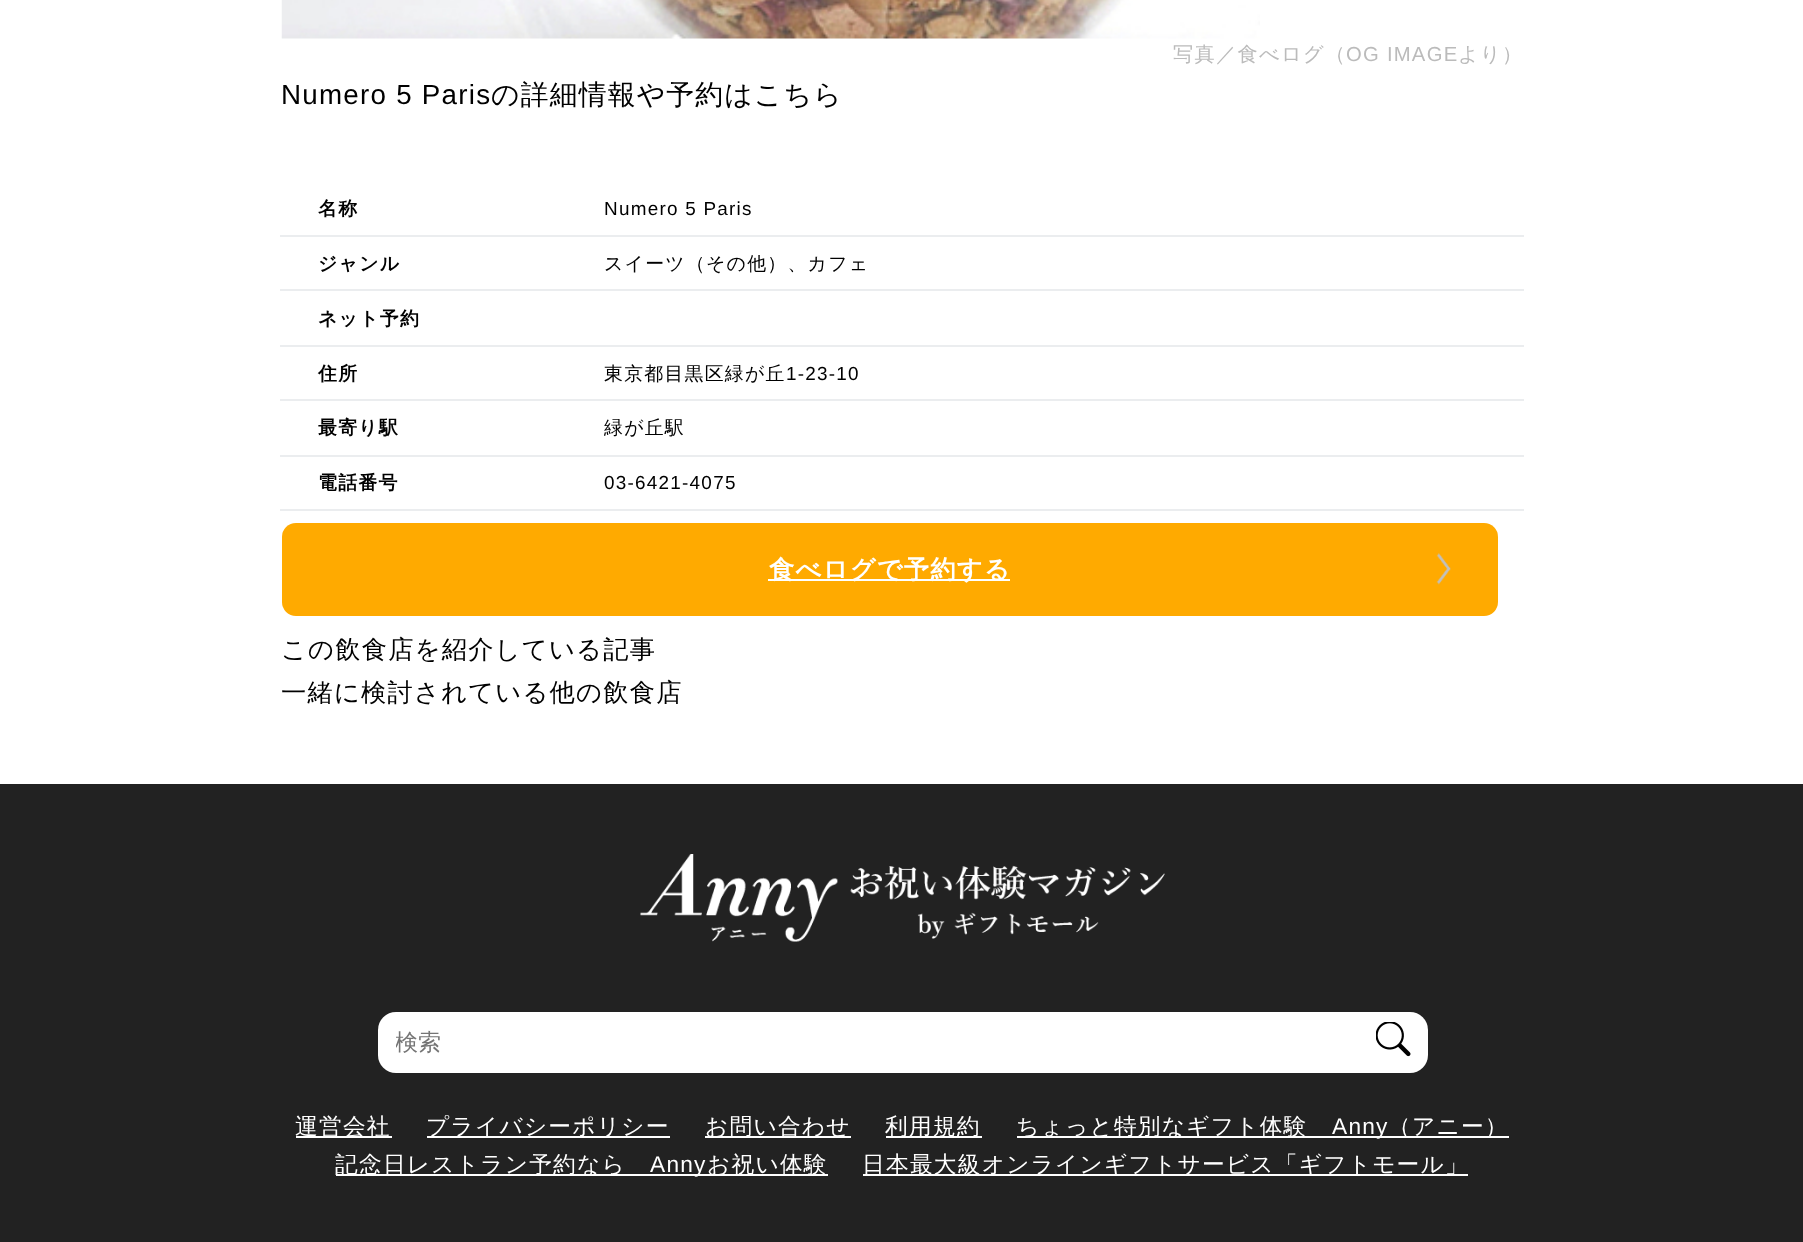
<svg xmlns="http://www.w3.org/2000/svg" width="1803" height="1242">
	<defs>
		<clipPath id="clip1"><rect x="396" y="1027" width="939" height="32" /></clipPath>
	</defs>
	<rect width="100%" height="100%" fill="#FFFFFF" />
	<image x="281" y="0" width="979" height="39" href="assets/img1.png" />
	<text x="1173" y="61" font-family="WenQuanYi Zen Hei" font-size="20.25" font-weight="500" letter-spacing="1.25" fill="#BBBBBB">写真／食べログ（</text>
	<text x="1346" y="61" font-family="Liberation Sans" font-size="20.25" letter-spacing="1.25" fill="#BBBBBB">OG IMAGE</text>
	<text x="1458" y="61" font-family="WenQuanYi Zen Hei" font-size="20.25" font-weight="500" letter-spacing="1.25" fill="#BBBBBB">より）</text>
	<text x="281" y="104" font-family="Liberation Sans" font-size="27.75" letter-spacing="1.25" fill="#000000">Numero 5 Paris</text>
	<text x="491" y="104" font-family="WenQuanYi Zen Hei" font-size="27.75" font-weight="500" letter-spacing="1.25" fill="#000000">の詳細情報や予約はこちら</text>
	<text x="318" y="215" font-family="WenQuanYi Zen Hei" font-size="18.9" font-weight="700" letter-spacing="1.25" fill="#000000">名称</text>
	<rect x="280" y="235" width="1244" height="2" fill="#EBEDEF" />
	<text x="604" y="215" font-family="Liberation Sans" font-size="18.9" letter-spacing="1.25" fill="#000000">Numero 5 Paris</text>
	<text x="318" y="270" font-family="WenQuanYi Zen Hei" font-size="18.9" font-weight="700" letter-spacing="1.25" fill="#000000">ジャンル</text>
	<rect x="280" y="289" width="1244" height="2" fill="#EBEDEF" />
	<text x="604" y="270" font-family="WenQuanYi Zen Hei" font-size="18.9" font-weight="500" letter-spacing="1.25" fill="#000000">スイーツ（その他）、カフェ</text>
	<text x="318" y="325" font-family="WenQuanYi Zen Hei" font-size="18.9" font-weight="700" letter-spacing="1.25" fill="#000000">ネット予約</text>
	<rect x="280" y="345" width="1244" height="2" fill="#EBEDEF" />
	<text x="318" y="380" font-family="WenQuanYi Zen Hei" font-size="18.9" font-weight="700" letter-spacing="1.25" fill="#000000">住所</text>
	<rect x="280" y="399" width="1244" height="2" fill="#EBEDEF" />
	<text x="604" y="380" font-family="WenQuanYi Zen Hei" font-size="18.9" font-weight="500" letter-spacing="1.25" fill="#000000">東京都目黒区緑が丘</text>
	<text x="786" y="380" font-family="Liberation Sans" font-size="18.9" letter-spacing="1.25" fill="#000000">1-23-10</text>
	<text x="318" y="434" font-family="WenQuanYi Zen Hei" font-size="18.9" font-weight="700" letter-spacing="1.25" fill="#000000">最寄り駅</text>
	<rect x="280" y="455" width="1244" height="2" fill="#EBEDEF" />
	<text x="604" y="434" font-family="WenQuanYi Zen Hei" font-size="18.9" font-weight="500" letter-spacing="1.25" fill="#000000">緑が丘駅</text>
	<text x="318" y="489" font-family="WenQuanYi Zen Hei" font-size="18.9" font-weight="700" letter-spacing="1.25" fill="#000000">電話番号</text>
	<rect x="280" y="509" width="1244" height="2" fill="#EBEDEF" />
	<text x="604" y="489" font-family="Liberation Sans" font-size="18.9" letter-spacing="1.25" fill="#000000">03-6421-4075</text>
	<rect x="282" y="523" width="1216" height="93" rx="14" fill="#FFAA00" />
	<image x="1436" y="553" width="15" height="32" href="assets/img2.png" />
	<rect x="768" y="579" width="242" height="2" fill="#FFFFFF" />
	<text x="769" y="578" font-family="WenQuanYi Zen Hei" font-size="25.25" font-weight="700" letter-spacing="1.25" fill="#FFFFFF">食べログで予約する</text>
	<g font-family="WenQuanYi Zen Hei" font-size="25.25" font-weight="500" letter-spacing="1.25" fill="#000000">
		<text x="281" y="658">この飲食店を紹介している記事</text>
		<text x="281" y="701">一緒に検討されている他の飲食店</text>
	</g>
	<rect x="0" y="784" width="1803" height="458" fill="#222222" />
	<image x="640" y="854" width="525" height="88" href="assets/img3.png" />
	<rect x="378" y="1012" width="1050" height="61" rx="18" fill="#FFFFFF" />
	<g clip-path="url(#clip1)">
		<text x="395" y="1050" font-family="WenQuanYi Zen Hei" font-size="23" font-weight="500" fill="#757575">検索</text>
	</g>
	<image x="1376" y="1022" width="35" height="35" href="assets/img4.png" />
	<rect x="296" y="1136" width="96" height="2" fill="#FFFFFF" />
	<text x="295" y="1134" font-family="WenQuanYi Zen Hei" font-size="22.7" font-weight="500" letter-spacing="1.25" fill="#FFFFFF">運営会社</text>
	<rect x="427" y="1136" width="243" height="2" fill="#FFFFFF" />
	<text x="426" y="1134" font-family="WenQuanYi Zen Hei" font-size="22.7" font-weight="500" letter-spacing="1.25" fill="#FFFFFF">プライバシーポリシー</text>
	<rect x="705" y="1136" width="146" height="2" fill="#FFFFFF" />
	<text x="705" y="1134" font-family="WenQuanYi Zen Hei" font-size="22.7" font-weight="500" letter-spacing="1.25" fill="#FFFFFF">お問い合わせ</text>
	<rect x="886" y="1136" width="96" height="2" fill="#FFFFFF" />
	<text x="885" y="1134" font-family="WenQuanYi Zen Hei" font-size="22.7" font-weight="500" letter-spacing="1.25" fill="#FFFFFF">利用規約</text>
	<rect x="1017" y="1136" width="492" height="2" fill="#FFFFFF" />
	<text x="1016" y="1134" font-family="WenQuanYi Zen Hei" font-size="22.7" font-weight="500" letter-spacing="1.25" fill="#FFFFFF">ちょっと特別なギフト体験</text>
	<text x="1332" y="1134" font-family="Liberation Sans" font-size="22.7" letter-spacing="1.25" fill="#FFFFFF">Anny</text>
	<text x="1388" y="1134" font-family="WenQuanYi Zen Hei" font-size="22.7" font-weight="500" letter-spacing="1.25" fill="#FFFFFF">（アニー）</text>
	<rect x="336" y="1174" width="492" height="2" fill="#FFFFFF" />
	<text x="335" y="1172" font-family="WenQuanYi Zen Hei" font-size="22.7" font-weight="500" letter-spacing="1.25" fill="#FFFFFF">記念日レストラン予約なら</text>
	<text x="650" y="1172" font-family="Liberation Sans" font-size="22.7" letter-spacing="1.25" fill="#FFFFFF">Anny</text>
	<text x="707" y="1172" font-family="WenQuanYi Zen Hei" font-size="22.7" font-weight="500" letter-spacing="1.25" fill="#FFFFFF">お祝い体験</text>
	<rect x="863" y="1174" width="605" height="2" fill="#FFFFFF" />
	<text x="862" y="1172" font-family="WenQuanYi Zen Hei" font-size="22.7" font-weight="500" letter-spacing="1.25" fill="#FFFFFF">日本最大級オンラインギフトサービス「ギフトモール」</text>
</svg>
